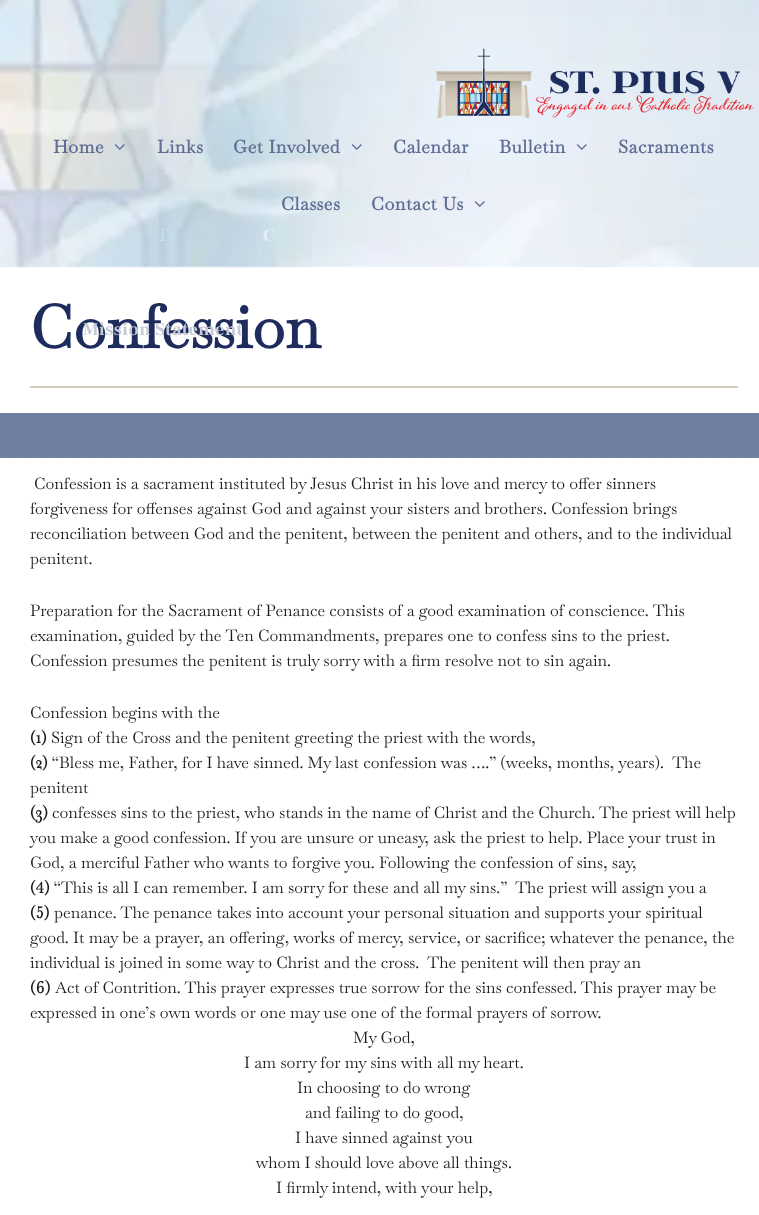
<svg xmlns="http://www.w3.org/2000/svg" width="759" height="1215">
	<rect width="100%" height="100%" fill="#FFFFFF" />
	<image x="0" y="0" width="759" height="268" href="assets/img1.png" />
	<image x="435" y="48" width="319" height="70" href="assets/img2.png" />
	<g font-family="Baskervville" font-size="18" font-weight="700" letter-spacing="0.5" fill="#5E6D93">
		<text x="157" y="153">Links</text>
		<text x="233" y="153">Get Involved</text>
	</g>
	<image x="351" y="144" width="11" height="6" href="assets/img3.png" />
	<text x="263" y="241" font-family="Frank Ruhl Libre" font-size="18" font-weight="700" letter-spacing="0.5" fill="#E4EEF4">C</text>
	<g font-family="Baskervville" font-size="18" font-weight="700" letter-spacing="0.5" fill="#5E6D93">
		<text x="393" y="153">Calendar</text>
		<text x="499" y="153">Bulletin</text>
	</g>
	<image x="576" y="144" width="11" height="6" href="assets/img4.png" />
	<text x="53" y="153" font-family="Baskervville" font-size="18" font-weight="700" letter-spacing="0.5" fill="#5E6D93">Home</text>
	<image x="114" y="144" width="11" height="6" href="assets/img5.png" />
	<text x="160" y="241" font-family="Frank Ruhl Libre" font-size="18" font-weight="700" letter-spacing="0.5" fill="#CDDEE9">i</text>
	<text x="30" y="348" font-family="Baskervville" font-size="60" font-weight="700" fill="#1D2C5C">Confession</text>
	<text x="83" y="335" font-family="Frank Ruhl Libre" font-size="18" font-weight="700" letter-spacing="0.5" fill="#C6CAD6">Mission Statement</text>
	<g font-family="Baskervville" font-size="18" font-weight="700" letter-spacing="0.5" fill="#5E6D93">
		<text x="618" y="153">Sacraments</text>
		<text x="281" y="210">Classes</text>
		<text x="371" y="210">Contact Us</text>
	</g>
	<image x="474" y="201" width="11" height="6" href="assets/img6.png" />
	<rect x="30" y="386" width="708" height="2" fill="#D3CABA" />
	<rect x="0" y="413" width="759" height="45" fill="#6C7D9E" />
	<image x="0" y="413" width="759" height="45" href="assets/img7.png" />
	<g font-family="Baskervville" font-size="16" fill="#1B1C1E">
		<text x="34" y="489">Confession is a sacrament instituted by Jesus Christ in his love and mercy to offer sinners</text>
		<text x="30" y="514">forgiveness for offenses against God and against your sisters and brothers. Confession brings</text>
		<text x="30" y="539">reconciliation between God and the penitent, between the penitent and others, and to the individual</text>
		<text x="30" y="564">penitent.</text>
		<text x="30" y="616">Preparation for the Sacrament of Penance consists of a good examination of conscience. This</text>
		<text x="30" y="641">examination, guided by the Ten Commandments, prepares one to confess sins to the priest.</text>
		<text x="30" y="666">Confession presumes the penitent is truly sorry with a firm resolve not to sin again.</text>
		<text x="30" y="718">Confession begins with the</text>
	</g>
	<text x="30" y="743" font-family="Baskervville" font-size="16" font-weight="700" fill="#1B1C1E">(1)</text>
	<text x="51" y="743" font-family="Baskervville" font-size="16" fill="#1B1C1E">Sign of the Cross and the penitent greeting the priest with the words,</text>
	<text x="30" y="768" font-family="Baskervville" font-size="16" font-weight="700" fill="#1B1C1E">(2)</text>
	<g font-family="Baskervville" font-size="16" fill="#1B1C1E">
		<text x="52" y="768" xml:space="preserve">“Bless me, Father, for I have sinned. My last confession was ….” (weeks, months, years).  The</text>
		<text x="30" y="793">penitent</text>
	</g>
	<text x="30" y="818" font-family="Baskervville" font-size="16" font-weight="700" fill="#1B1C1E">(3)</text>
	<g font-family="Baskervville" font-size="16" fill="#1B1C1E">
		<text x="52" y="818">confesses sins to the priest, who stands in the name of Christ and the Church. The priest will help</text>
		<text x="30" y="843">you make a good confession. If you are unsure or uneasy, ask the priest to help. Place your trust in</text>
		<text x="30" y="868">God, a merciful Father who wants to forgive you. Following the confession of sins, say,</text>
	</g>
	<text x="30" y="893" font-family="Baskervville" font-size="16" font-weight="700" fill="#1B1C1E">(4)</text>
	<text x="54" y="893" font-family="Baskervville" font-size="16" fill="#1B1C1E" xml:space="preserve">“This is all I can remember. I am sorry for these and all my sins.”  The priest will assign you a</text>
	<text x="30" y="918" font-family="Baskervville" font-size="16" font-weight="700" fill="#1B1C1E">(5)</text>
	<g font-family="Baskervville" font-size="16" fill="#1B1C1E">
		<text x="54" y="918">penance. The penance takes into account your personal situation and supports your spiritual</text>
		<text x="30" y="943">good. It may be a prayer, an offering, works of mercy, service, or sacrifice; whatever the penance, the</text>
		<text x="30" y="968" xml:space="preserve">individual is joined in some way to Christ and the cross.  The penitent will then pray an</text>
	</g>
	<text x="30" y="993" font-family="Baskervville" font-size="16" font-weight="700" fill="#1B1C1E">(6)</text>
	<g font-family="Baskervville" font-size="16" fill="#1B1C1E">
		<text x="55" y="993">Act of Contrition. This prayer expresses true sorrow for the sins confessed. This prayer may be</text>
		<text x="30" y="1018">expressed in one’s own words or one may use one of the formal prayers of sorrow.</text>
		<text x="353" y="1043">My God,</text>
		<text x="244" y="1068">I am sorry for my sins with all my heart.</text>
		<text x="297" y="1093">In choosing to do wrong</text>
		<text x="305" y="1118">and failing to do good,</text>
		<text x="295" y="1143">I have sinned against you</text>
		<text x="256" y="1168">whom I should love above all things.</text>
		<text x="276" y="1193">I firmly intend, with your help,</text>
	</g>
</svg>
